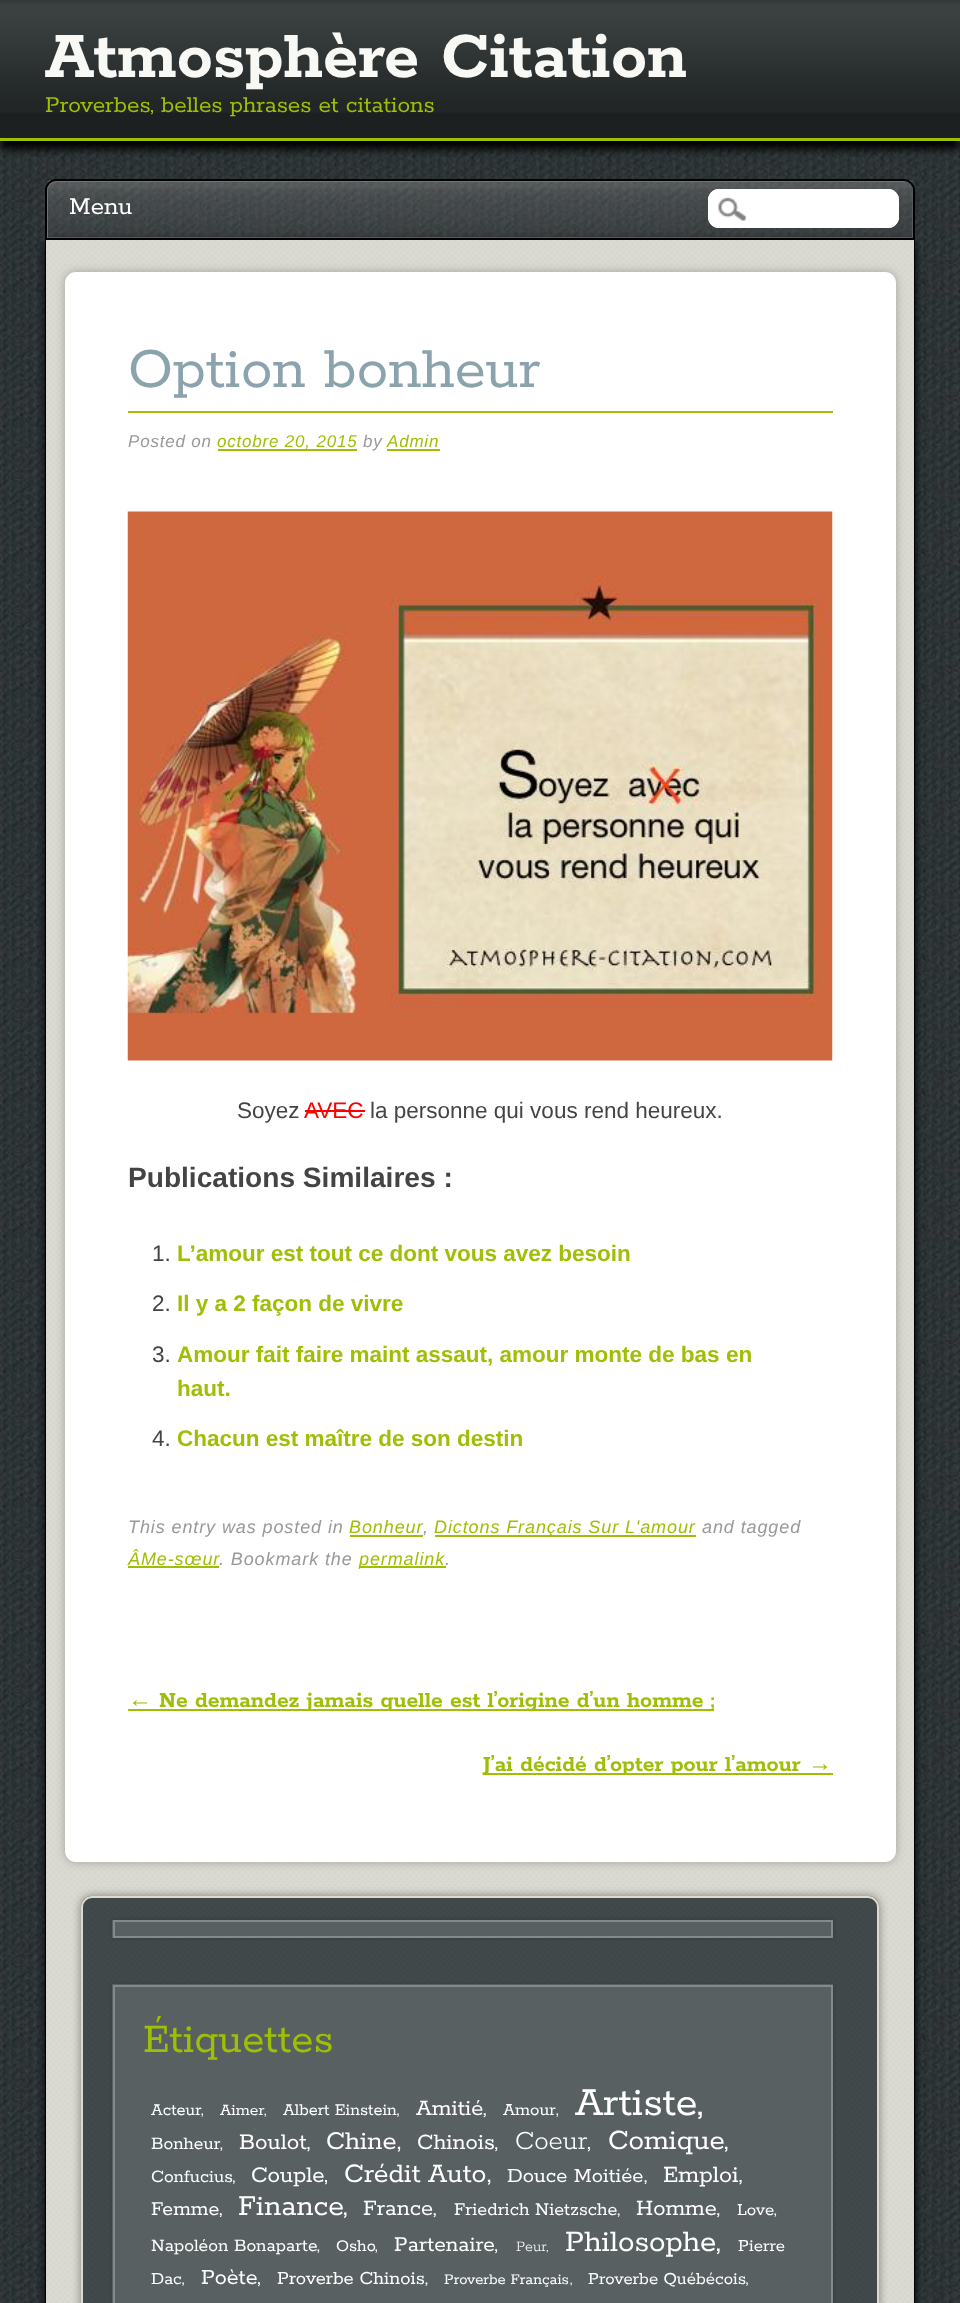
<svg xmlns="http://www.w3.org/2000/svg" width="960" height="2303">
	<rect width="100%" height="100%" fill="#FFFFFF" />
	<image x="0" y="141" width="960" height="2162" href="assets/img1.png" />
	<rect x="0" y="8" width="960" height="141" fill="#000000" filter="blur(4px)" />
	<rect x="0" y="113" width="960" height="25" fill="#1D2021" />
	<image x="0" y="0" width="960" height="113" href="assets/img2.png" />
	<rect x="0" y="138" width="960" height="3" fill="#9FBF06" />
	<text x="45" y="77" font-family="Rokkitt" font-size="72" font-weight="700" fill="#F8F8F5">Atmosphère Citation</text>
	<text x="45" y="112" font-family="Rokkitt" font-size="25.25" fill="#9FBF06">Proverbes, belles phrases et citations</text>
	<rect x="45" y="240" width="870" height="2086" rx="11" fill="#000000" filter="blur(4px)" />
	<image x="45" y="180" width="870" height="57" href="assets/img3.png" />
	<path d="M47 237V239H914V189C914 186 912 183 909 181C911 183 912 186 912 188V237Z" fill="#575A5B" />
	<path d="M57 182H906C909 182 912 183 913 185C912 182 909 180 905 180H56C51 180 47 184 47 189V239H48V190C48 186 52 182 57 182Z" fill="#707273" />
	<path d="M56 180H904C909.5 180 914 184.5 914 190V239H46V190C46 184.5 50.5 180 56 180Z" fill="none" stroke="#000000" stroke-width="2" />
	<text x="69" y="214" font-family="Rokkitt" font-size="27" fill="#FFFFFF">Menu</text>
	<rect x="708" y="189" width="191" height="39" rx="11" fill="#FFFFFF" />
	<image x="718" y="197" width="29" height="24" href="assets/img4.png" />
	<rect x="709" y="190" width="189" height="37" rx="10" fill="none" stroke="#FFFFFF" stroke-width="2" />
	<image x="46" y="240" width="868" height="2063" href="assets/img5.png" />
	<path d="M45 240H915V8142C915 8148 910 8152 904 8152H56C50 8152 45 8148 45 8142ZM46 240H914V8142C914 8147 909 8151 904 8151H56C51 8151 46 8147 46 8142Z" fill="#000000" fill-rule="evenodd" />
	<rect x="65" y="272" width="831" height="1590" rx="11" fill="#A2A19B" filter="blur(5px)" />
	<rect x="66" y="273" width="829" height="1588" rx="10" fill="#FFFFFF" stroke="#FFFFFF" stroke-width="2" />
	<rect x="128" y="411" width="705" height="2" fill="#9FBF06" />
	<text x="128" y="387" font-family="Rokkitt" font-size="63" fill="#8BA3AD">Option bonheur</text>
	<text x="128" y="447" font-family="Liberation Sans" font-size="17" font-style="italic" letter-spacing="0.8" fill="#999999">Posted on</text>
	<rect x="218" y="449" width="139" height="2" fill="#9FBF06" />
	<text x="217" y="447" font-family="Liberation Sans" font-size="17" font-style="italic" letter-spacing="0.8" fill="#9FBF06">octobre 20, 2015</text>
	<text x="363" y="447" font-family="Liberation Sans" font-size="17" font-style="italic" letter-spacing="0.8" fill="#999999">by</text>
	<text x="387" y="447" font-family="Liberation Sans" font-size="17" font-style="italic" letter-spacing="0.8" fill="#9FBF06">Admin</text>
	<rect x="387" y="449" width="53" height="2" fill="#9FBF06" />
	<image x="127" y="511" width="706" height="550" href="assets/img6.png" />
	<text x="237" y="1118" font-family="Liberation Sans" font-size="22.5" fill="#444444">Soyez</text>
	<text x="304" y="1118" font-family="Liberation Sans" font-size="22.5" fill="#FF0000">AVEC</text>
	<rect x="305" y="1110" width="60" height="2" fill="#FF0000" />
	<text x="370" y="1118" font-family="Liberation Sans" font-size="22.5" fill="#444444">la personne qui vous rend heureux.</text>
	<text x="128" y="1187" font-family="Liberation Sans" font-size="28.1" font-weight="700" fill="#444444">Publications Similaires :</text>
	<text x="152" y="1261" font-family="Liberation Sans" font-size="22.5" fill="#444444">1.</text>
	<text x="177" y="1261" font-family="Liberation Sans" font-size="22.5" font-weight="700" fill="#9FBF06">L’amour est tout ce dont vous avez besoin</text>
	<text x="152" y="1311" font-family="Liberation Sans" font-size="22.5" fill="#444444">2.</text>
	<text x="177" y="1311" font-family="Liberation Sans" font-size="22.5" font-weight="700" fill="#9FBF06">Il y a 2 façon de vivre</text>
	<text x="152" y="1362" font-family="Liberation Sans" font-size="22.5" fill="#444444">3.</text>
	<g font-family="Liberation Sans" font-size="22.5" font-weight="700" fill="#9FBF06">
		<text x="177" y="1362">Amour fait faire maint assaut, amour monte de bas en</text>
		<text x="177" y="1396">haut.</text>
	</g>
	<text x="152" y="1446" font-family="Liberation Sans" font-size="22.5" fill="#444444">4.</text>
	<text x="177" y="1446" font-family="Liberation Sans" font-size="22.5" font-weight="700" fill="#9FBF06">Chacun est maître de son destin</text>
	<text x="128" y="1533" font-family="Liberation Sans" font-size="18" font-style="italic" letter-spacing="0.9" fill="#999999">This entry was posted in</text>
	<text x="349" y="1533" font-family="Liberation Sans" font-size="18" font-style="italic" letter-spacing="0.9" fill="#9FBF06">Bonheur</text>
	<rect x="350" y="1535" width="73" height="2" fill="#9FBF06" />
	<rect x="435" y="1535" width="261" height="2" fill="#9FBF06" />
	<text x="434" y="1533" font-family="Liberation Sans" font-size="18" font-style="italic" letter-spacing="0.9" fill="#9FBF06">Dictons Français Sur L'amour</text>
	<g font-family="Liberation Sans" font-size="18" font-style="italic" letter-spacing="0.9" fill="#999999">
		<text x="702" y="1533">and tagged</text>
		<text x="423" y="1533">,</text>
	</g>
	<text x="128" y="1565" font-family="Liberation Sans" font-size="18" font-style="italic" letter-spacing="0.9" fill="#9FBF06">ÂMe-sœur</text>
	<rect x="128" y="1566" width="91" height="2" fill="#9FBF06" />
	<text x="219" y="1565" font-family="Liberation Sans" font-size="18" font-style="italic" letter-spacing="0.9" fill="#999999">. Bookmark the</text>
	<rect x="359" y="1566" width="87" height="2" fill="#9FBF06" />
	<text x="359" y="1565" font-family="Liberation Sans" font-size="18" font-style="italic" letter-spacing="0.9" fill="#9FBF06">permalink</text>
	<text x="445" y="1565" font-family="Liberation Sans" font-size="18" font-style="italic" letter-spacing="0.9" fill="#999999">.</text>
	<text x="128" y="1707" font-family="Liberation Serif" font-size="24" font-weight="700" fill="#9FBF06">←</text>
	<rect x="128" y="1709" width="586" height="2" fill="#9FBF06" />
	<text x="159" y="1707" font-family="Rokkitt" font-size="24" font-weight="700" fill="#9FBF06">Ne demandez jamais quelle est l’origine d’un homme ;</text>
	<rect x="483" y="1773" width="350" height="2" fill="#9FBF06" />
	<text x="483" y="1771" font-family="Rokkitt" font-size="24" font-weight="700" fill="#9FBF06">J’ai décidé d’opter pour l’amour</text>
	<text x="808" y="1771" font-family="Liberation Serif" font-size="24" font-weight="700" fill="#9FBF06">→</text>
	<rect x="81" y="1896" width="798" height="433" rx="11" fill="#7D7C78" filter="blur(5px)" />
	<image x="81" y="1896" width="798" height="407" href="assets/img7.png" />
	<rect x="82" y="1897" width="796" height="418" rx="10" fill="none" stroke="#DBDAD2" stroke-width="2" />
	<rect x="113" y="1920" width="720" height="18" fill="#33393A" filter="blur(2px)" />
	<rect x="112" y="1920" width="719" height="18" fill="#586061" />
	<rect x="114" y="1921" width="718" height="16" fill="none" stroke="#808B8C" stroke-width="2" />
	<rect x="113" y="1985" width="720" height="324" fill="#33393A" filter="blur(2px)" />
	<rect x="112" y="1984" width="721" height="319" fill="#586061" />
	<rect x="114" y="1986" width="718" height="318" fill="none" stroke="#808B8C" stroke-width="2" />
	<text x="143" y="2052" font-family="Rokkitt" font-size="45" fill="#9FBF06">Étiquettes</text>
	<g font-family="Rokkitt" font-size="18.25" fill="#FFFFFF">
		<text x="151" y="2115">Acteur</text>
		<text x="201" y="2115">,</text>
	</g>
	<text x="220" y="2115" font-family="Rokkitt" font-size="17.5" fill="#FFFFFF">Aimer</text>
	<text x="283" y="2115" font-family="Rokkitt" font-size="18.25" fill="#FFFFFF">Albert Einstein,</text>
	<text x="416" y="2115" font-family="Rokkitt" font-size="24.5" fill="#FFFFFF">Amitié,</text>
	<text x="503" y="2115" font-family="Rokkitt" font-size="18.75" fill="#FFFFFF">Amour</text>
	<g font-family="Rokkitt" font-size="44" fill="#FFFFFF">
		<text x="575" y="2115">Artiste</text>
		<text x="697" y="2115">,</text>
	</g>
	<text x="264" y="2115" font-family="Rokkitt" font-size="17.5" fill="#FFFFFF">,</text>
	<text x="556" y="2115" font-family="Rokkitt" font-size="18.75" fill="#FFFFFF">,</text>
	<g font-family="Rokkitt" font-size="19.5" fill="#FFFFFF">
		<text x="151" y="2149">Bonheur</text>
		<text x="220" y="2149">,</text>
	</g>
	<text x="239" y="2149" font-family="Rokkitt" font-size="25" fill="#FFFFFF">Boulot,</text>
	<g font-family="Rokkitt" font-size="28.5" fill="#FFFFFF">
		<text x="326" y="2149">Chine</text>
		<text x="397" y="2149">,</text>
	</g>
	<text x="417" y="2149" font-family="Rokkitt" font-size="24.5" fill="#FFFFFF">Chinois,</text>
	<text x="515" y="2149" font-family="Rokkitt" font-size="29" font-weight="300" fill="#FFFFFF">Coeur,</text>
	<g font-family="Rokkitt" font-size="31" fill="#FFFFFF">
		<text x="608" y="2149">Comique</text>
		<text x="724" y="2149">,</text>
	</g>
	<text x="151" y="2182" font-family="Rokkitt" font-size="19.5" fill="#FFFFFF">Confucius,</text>
	<text x="251" y="2182" font-family="Rokkitt" font-size="25" fill="#FFFFFF">Couple,</text>
	<g font-family="Rokkitt" font-size="29.75" fill="#FFFFFF">
		<text x="344" y="2182" word-spacing="-1">Crédit Auto</text>
		<text x="487" y="2182">,</text>
	</g>
	<g font-family="Rokkitt" font-size="22.5" fill="#FFFFFF">
		<text x="507" y="2182">Douce Moitiée</text>
		<text x="644" y="2182">,</text>
	</g>
	<text x="663" y="2182" font-family="Rokkitt" font-size="26" fill="#FFFFFF">Emploi,</text>
	<text x="151" y="2215" font-family="Rokkitt" font-size="22" fill="#FFFFFF">Femme,</text>
	<g font-family="Rokkitt" font-size="32" fill="#FFFFFF">
		<text x="238" y="2215">Finance</text>
		<text x="343" y="2215">,</text>
	</g>
	<text x="363" y="2215" font-family="Rokkitt" font-size="24.5" fill="#FFFFFF">France,</text>
	<text x="454" y="2215" font-family="Rokkitt" font-size="20" fill="#FFFFFF">Friedrich Nietzsche,</text>
	<text x="636" y="2215" font-family="Rokkitt" font-size="24.5" fill="#FFFFFF">Homme,</text>
	<text x="737" y="2215" font-family="Rokkitt" font-size="18.75" fill="#FFFFFF">Love,</text>
	<g font-family="Rokkitt" font-size="19.5" fill="#FFFFFF">
		<text x="151" y="2251">Napoléon Bonaparte</text>
		<text x="317" y="2251">,</text>
	</g>
	<g font-family="Rokkitt" font-size="18.25" fill="#FFFFFF">
		<text x="336" y="2251">Osho</text>
		<text x="375" y="2251">,</text>
	</g>
	<text x="394" y="2251" font-family="Rokkitt" font-size="23.5" fill="#FFFFFF">Partenaire,</text>
	<text x="516" y="2251" font-family="Rokkitt" font-size="16" font-weight="300" fill="#FFFFFF">Peur,</text>
	<g font-family="Rokkitt" font-size="33" fill="#FFFFFF">
		<text x="565" y="2251">Philosophe</text>
		<text x="716" y="2251">,</text>
	</g>
	<g font-family="Rokkitt" font-size="18.75" fill="#FFFFFF">
		<text x="738" y="2251">Pierre</text>
		<text x="151" y="2284">Dac,</text>
	</g>
	<text x="201" y="2284" font-family="Rokkitt" font-size="24" fill="#FFFFFF">Poète,</text>
	<g font-family="Rokkitt" font-size="20.5" fill="#FFFFFF">
		<text x="277" y="2284">Proverbe Chinois</text>
		<text x="425" y="2284">,</text>
	</g>
	<g font-family="Rokkitt" font-size="16.5" fill="#FFFFFF">
		<text x="444" y="2284">Proverbe Français</text>
		<text x="570" y="2284">,</text>
	</g>
	<text x="588" y="2284" font-family="Rokkitt" font-size="18.75" fill="#FFFFFF">Proverbe Québécois,</text>
</svg>
